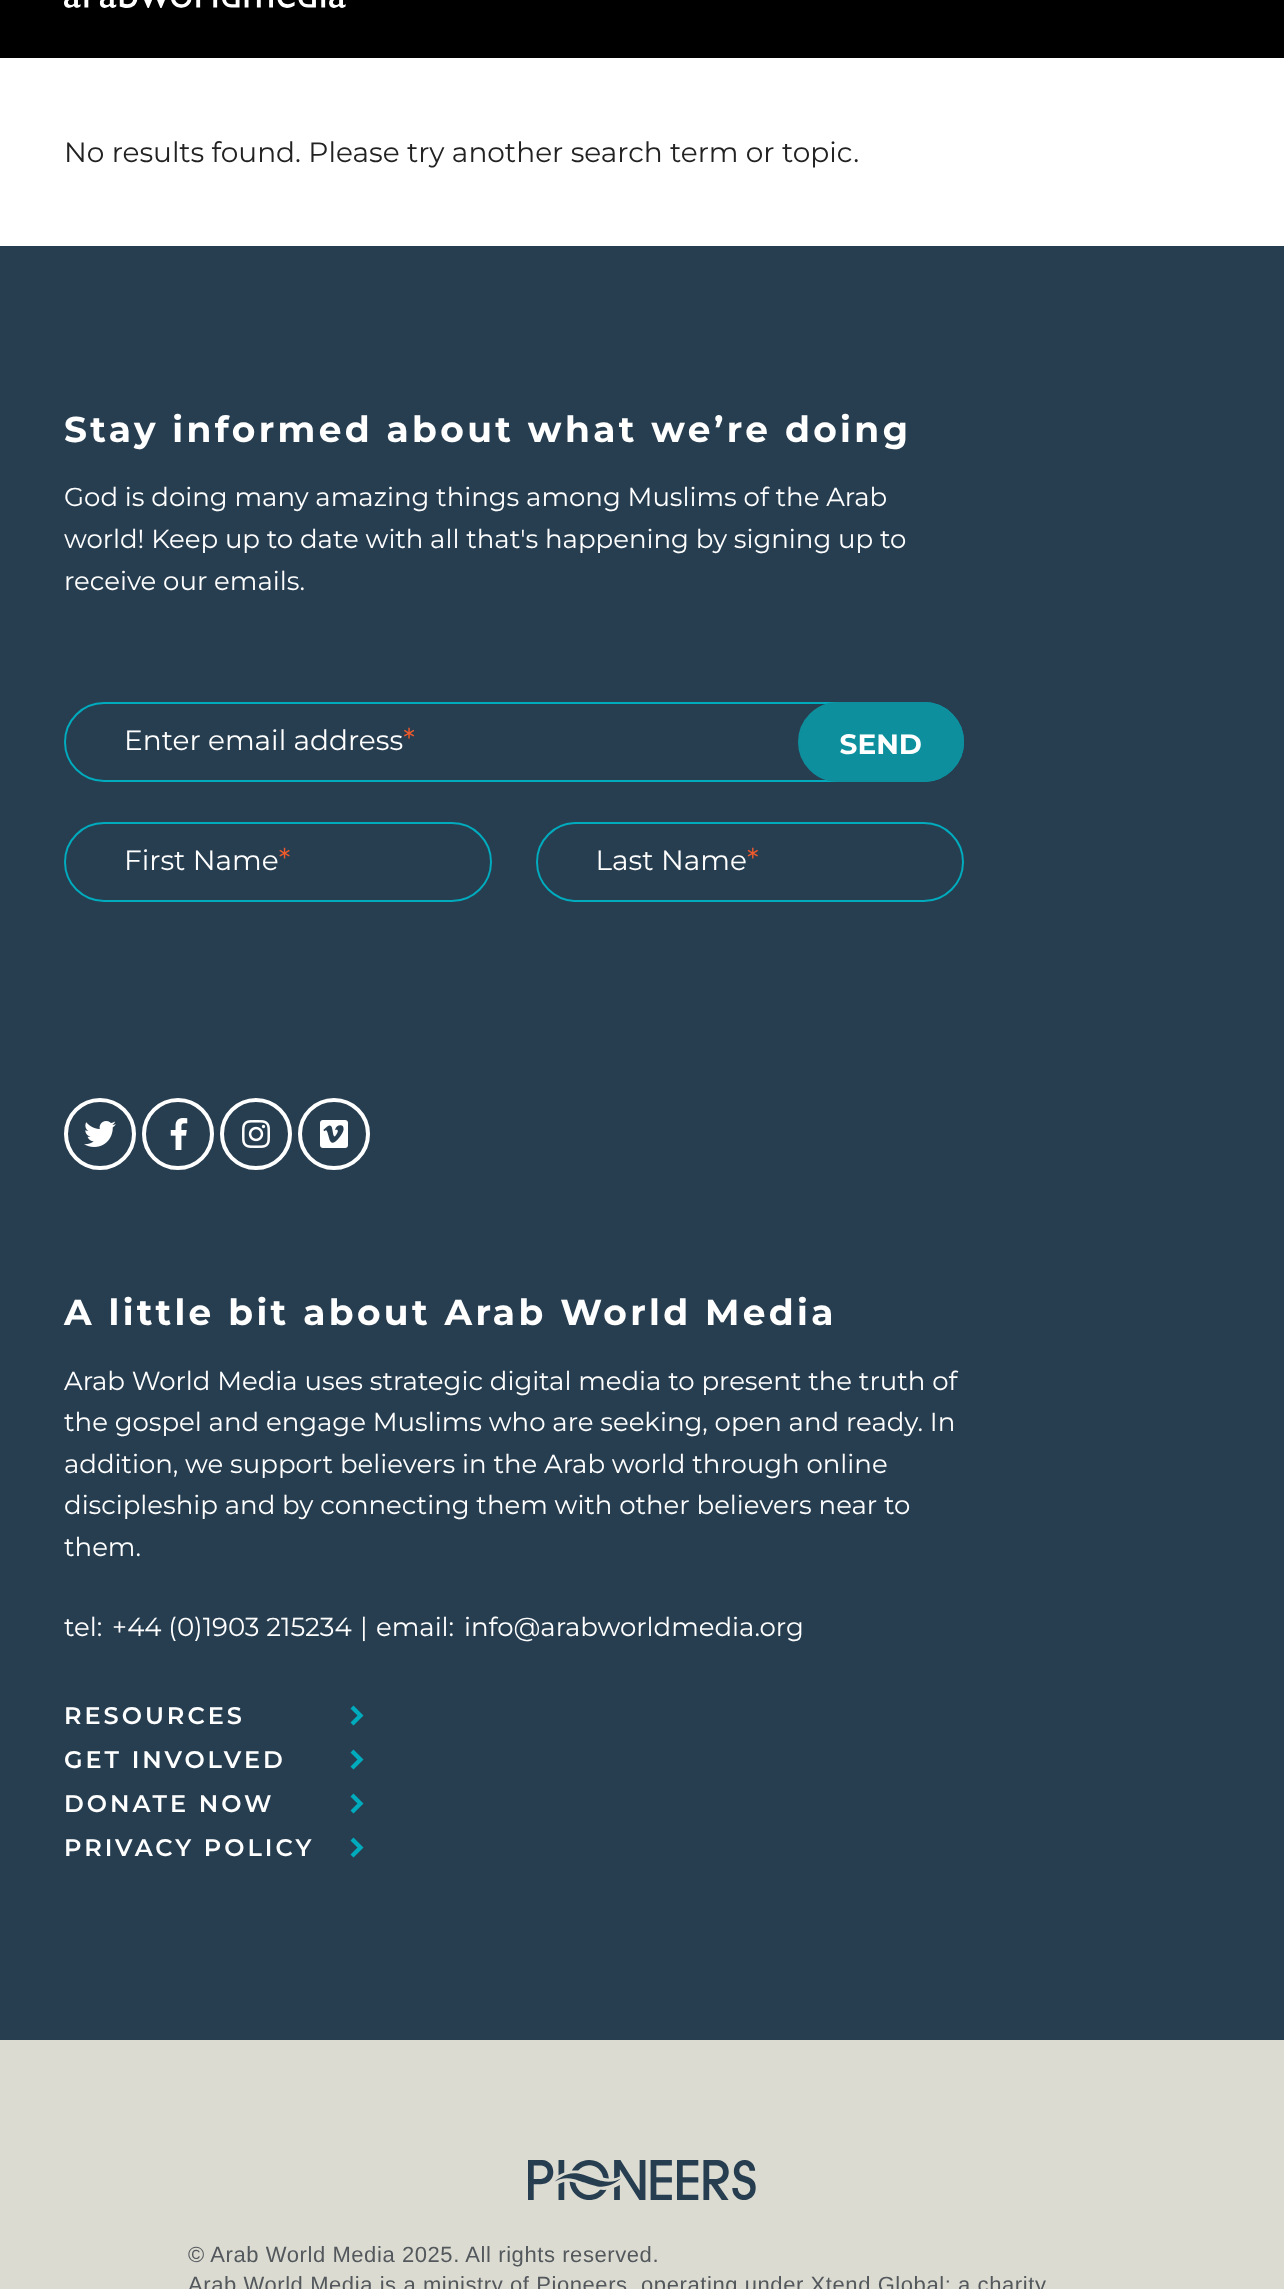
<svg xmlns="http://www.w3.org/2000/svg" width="1284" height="2289">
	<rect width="100%" height="100%" fill="#FFFFFF" />
	<rect x="0" y="0" width="1284" height="58" fill="#000000" />
	<image x="64" y="0" width="282" height="8" href="assets/img1.png" />
	<text x="64" y="162" font-family="Montserrat" font-size="28" fill="#222222">No results found. Please try another search term or topic.</text>
	<rect x="0" y="246" width="1284" height="1794" fill="#273E51" />
	<text x="64" y="442" font-family="Montserrat" font-size="36" font-weight="700" letter-spacing="3.35" fill="#FFFFFF">Stay informed about what we’re doing</text>
	<g font-family="Montserrat" font-size="26" fill="#FFFFFF">
		<text x="64" y="506">God is doing many amazing things among Muslims of the Arab</text>
		<text x="64" y="548">world! Keep up to date with all that's happening by signing up to</text>
		<text x="64" y="590">receive our emails.</text>
	</g>
	<image x="64" y="702" width="900" height="200" href="assets/img2.png" />
	<circle cx="100" cy="1134" r="34" fill="none" stroke="#FFFFFF" stroke-width="4" />
	<image x="84" y="1121" width="32" height="26" href="assets/img3.png" />
	<circle cx="178" cy="1134" r="34" fill="none" stroke="#FFFFFF" stroke-width="4" />
	<image x="170" y="1118" width="18" height="32" href="assets/img4.png" />
	<circle cx="256" cy="1134" r="34" fill="none" stroke="#FFFFFF" stroke-width="4" />
	<image x="242" y="1120" width="28" height="28" href="assets/img5.png" />
	<circle cx="334" cy="1134" r="34" fill="none" stroke="#FFFFFF" stroke-width="4" />
	<image x="320" y="1120" width="28" height="28" href="assets/img6.png" />
	<text x="64" y="1325" font-family="Montserrat" font-size="36" font-weight="700" letter-spacing="3.35" fill="#FFFFFF">A little bit about Arab World Media</text>
	<g font-family="Montserrat" font-size="26" fill="#FFFFFF">
		<text x="64" y="1390">Arab World Media uses strategic digital media to present the truth of</text>
		<text x="64" y="1431">the gospel and engage Muslims who are seeking, open and ready. In</text>
		<text x="64" y="1473">addition, we support believers in the Arab world through online</text>
		<text x="64" y="1514">discipleship and by connecting them with other believers near to</text>
		<text x="64" y="1556">them.</text>
		<text x="64" y="1636">tel:</text>
		<text x="112" y="1636">+44 (0)1903 215234</text>
		<text x="360" y="1636">|</text>
		<text x="376" y="1636">email:</text>
		<text x="464" y="1636">info@arabworldmedia.org</text>
	</g>
	<path d="M350.5 1708.5L353.5 1705.5L363.5 1715.5L353.5 1725.5L350.5 1722.5L357.5 1715.5Z" fill="#00ABBD" />
	<text x="64" y="1724" font-family="Montserrat" font-size="24" font-weight="600" letter-spacing="3" fill="#FFFFFF">RESOURCES</text>
	<path d="M350.5 1752.5L353.5 1749.5L363.5 1759.5L353.5 1769.5L350.5 1766.5L357.5 1759.5Z" fill="#00ABBD" />
	<text x="64" y="1768" font-family="Montserrat" font-size="24" font-weight="600" letter-spacing="3" fill="#FFFFFF">GET INVOLVED</text>
	<path d="M350.5 1796.5L353.5 1793.5L363.5 1803.5L353.5 1813.5L350.5 1810.5L357.5 1803.5Z" fill="#00ABBD" />
	<text x="64" y="1812" font-family="Montserrat" font-size="24" font-weight="600" letter-spacing="3" fill="#FFFFFF">DONATE NOW</text>
	<path d="M350.5 1840.5L353.5 1837.5L363.5 1847.5L353.5 1857.5L350.5 1854.5L357.5 1847.5Z" fill="#00ABBD" />
	<text x="64" y="1856" font-family="Montserrat" font-size="24" font-weight="600" letter-spacing="3" fill="#FFFFFF">PRIVACY POLICY</text>
	<rect x="0" y="2040" width="1284" height="249" fill="#DBDBD1" />
	<image x="528" y="2160" width="228" height="40" href="assets/img7.png" />
	<g font-family="Liberation Sans" font-size="22" letter-spacing="0.58" fill="#53585D">
		<text x="188" y="2262">© Arab World Media 2025. All rights reserved.</text>
		<text x="188" y="2292">Arab World Media is a ministry of Pioneers, operating under Xtend Global: a charity</text>
	</g>
</svg>
